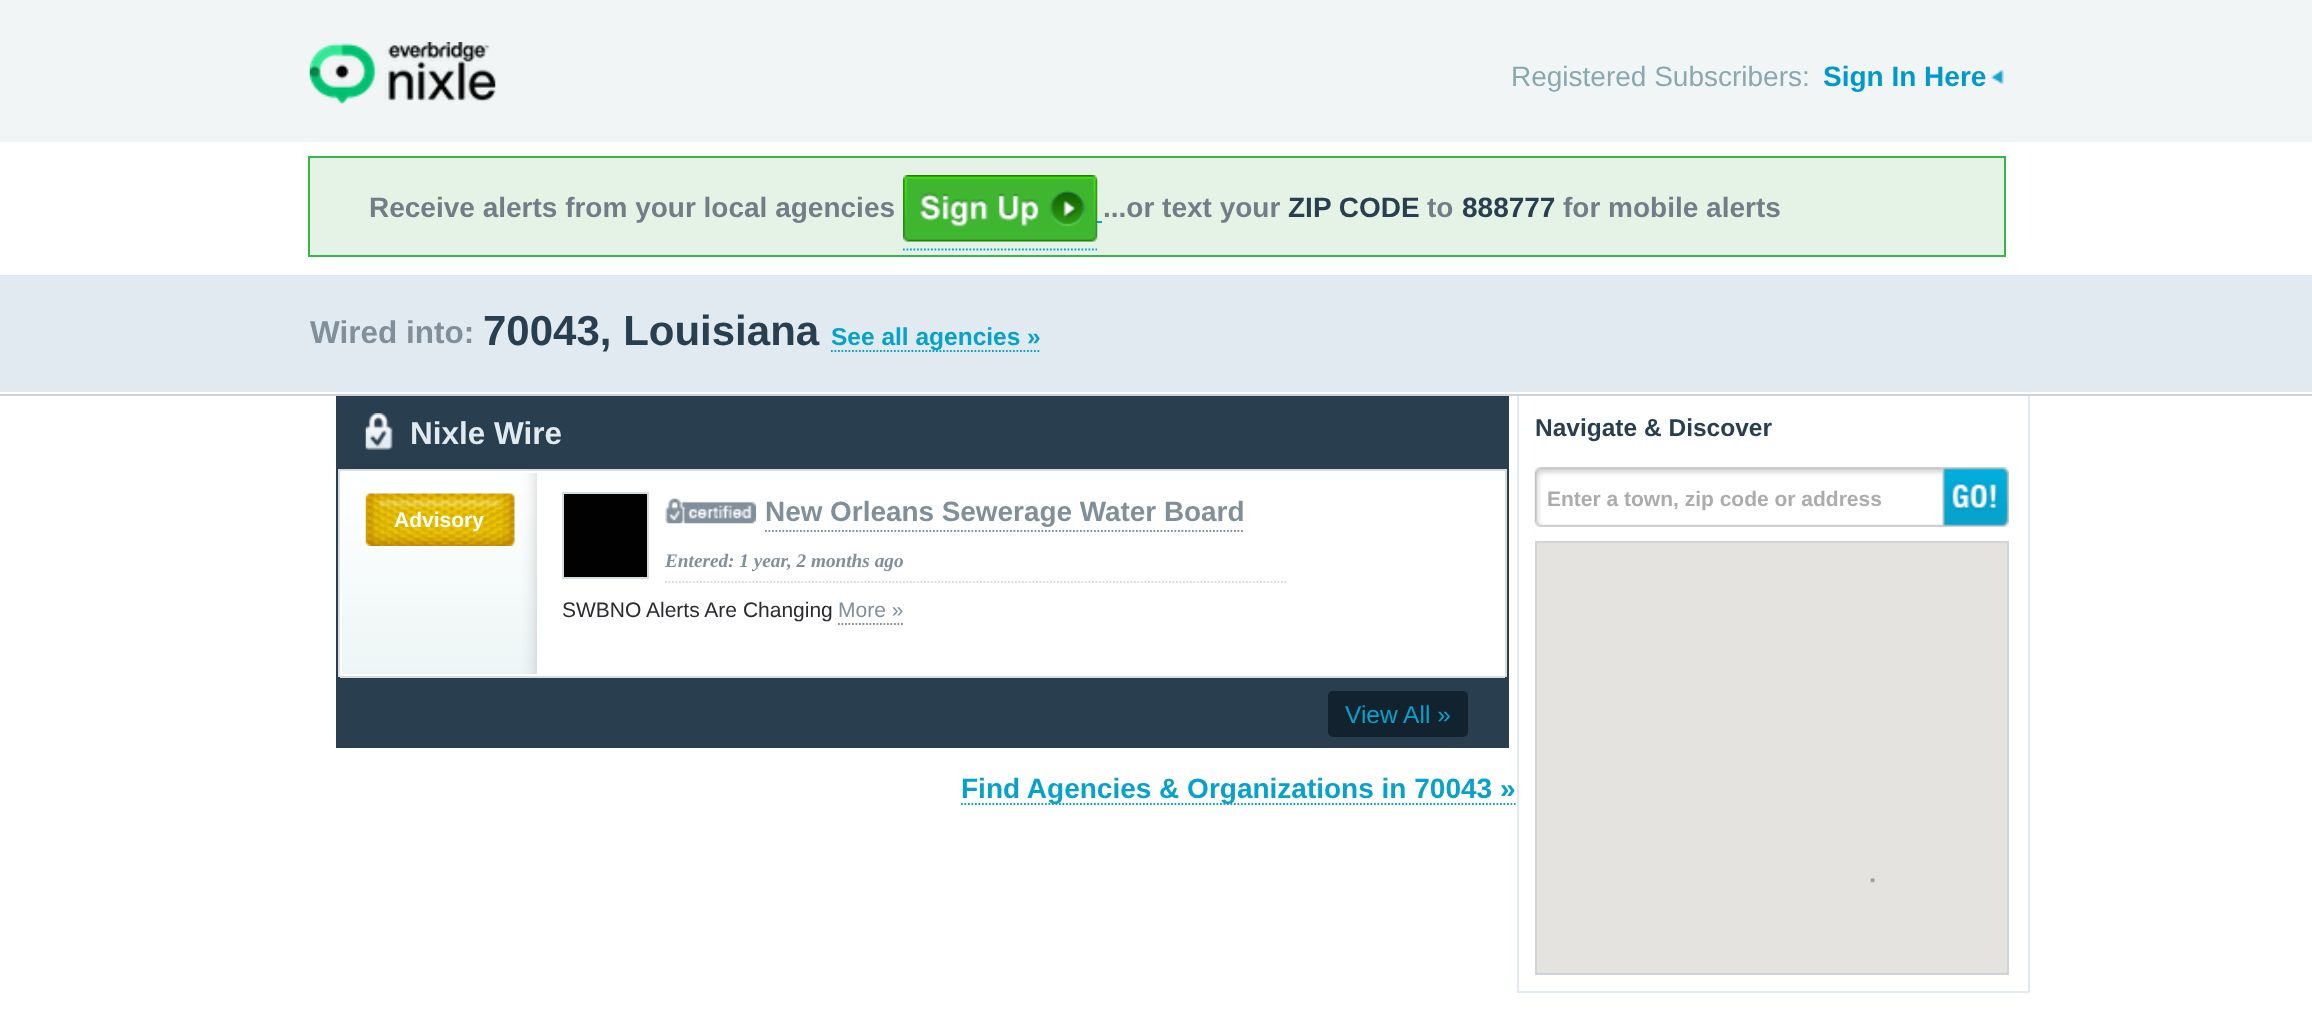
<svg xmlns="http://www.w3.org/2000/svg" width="2312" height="1010">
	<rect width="100%" height="100%" fill="#F1F5F5" />
	<image x="309" y="42" width="187" height="62" href="assets/img1.png" />
	<text x="1511" y="86" font-family="Liberation Sans" font-size="28" fill="#8BA7B0">Registered Subscribers:</text>
	<image x="1991" y="70" width="13" height="14" href="assets/img2.png" />
	<text x="1823" y="86" font-family="Liberation Sans" font-size="28" font-weight="700" fill="#0099CC">Sign In Here</text>
	<rect x="0" y="142" width="2312" height="133" fill="#FFFFFF" />
	<rect x="309" y="157" width="1696" height="99" fill="#E5F2E6" stroke="#39B54A" stroke-width="2" />
	<text x="369" y="217" font-family="Liberation Sans" font-size="28" font-weight="700" fill="#717E88">Receive alerts from your local agencies</text>
	<path d="M903 249.5H1097" fill="none" stroke="#07A2CA" stroke-width="1.8" stroke-dasharray="1.75 1.75" />
	<rect x="1097" y="221" width="5" height="2" fill="#07A2CA" />
	<image x="903" y="175" width="195" height="67" href="assets/img3.png" />
	<text x="1103" y="217" font-family="Liberation Sans" font-size="28" font-weight="700" fill="#717E88">...or text your</text>
	<text x="1288" y="217" font-family="Liberation Sans" font-size="28" font-weight="700" fill="#293F4F">ZIP CODE</text>
	<text x="1427" y="217" font-family="Liberation Sans" font-size="28" font-weight="700" fill="#717E88">to</text>
	<text x="1462" y="217" font-family="Liberation Sans" font-size="28" font-weight="700" fill="#293F4F">888777</text>
	<text x="1563" y="217" font-family="Liberation Sans" font-size="28" font-weight="700" fill="#717E88">for mobile alerts</text>
	<rect x="0" y="275" width="2312" height="117" fill="#E0EAF0" />
	<rect x="0" y="392" width="2312" height="2" fill="#FFFFFF" />
	<text x="310" y="343" font-family="Liberation Sans" font-size="31.5" font-weight="700" fill="#818F9B">Wired into:</text>
	<text x="483" y="345" font-family="Liberation Sans" font-size="42" font-weight="700" fill="#293F4F">70043, Louisiana</text>
	<path d="M831 351H1039.5" fill="none" stroke="#07A2CA" stroke-width="1.8" stroke-dasharray="1.75 1.75" />
	<text x="831" y="345" font-family="Liberation Sans" font-size="24.5" font-weight="700" fill="#07A2CA">See all agencies »</text>
	<rect x="0" y="396" width="2312" height="614" fill="#FFFFFF" />
	<rect x="0" y="394" width="2312" height="2" fill="#CDD4D9" />
	<rect x="1507" y="396" width="2" height="351" fill="#293E4F" />
	<rect x="336" y="746" width="1173" height="2" fill="#293E4F" />
	<rect x="336" y="396" width="2" height="351" fill="#293E4F" />
	<rect x="338" y="396" width="1169" height="73" fill="#293E4F" />
	<rect x="338" y="469" width="1169" height="2" fill="#D7DCE0" />
	<image x="365" y="413" width="28" height="37" href="assets/img4.png" />
	<text x="410" y="444" font-family="Liberation Sans" font-size="31.5" font-weight="700" fill="#E1EAF1">Nixle Wire</text>
	<rect x="1505" y="471" width="2" height="206" fill="#D7DCE0" />
	<rect x="338" y="471" width="2" height="206" fill="#D7DCE0" />
	<image x="341" y="470" width="197" height="204" href="assets/img5.png" />
	<rect x="338" y="677" width="1169" height="69" fill="#293E4F" />
	<rect x="340" y="676" width="1165" height="2" fill="#D7DCE0" />
	<image x="342" y="473" width="195" height="201" href="assets/img6.png" />
	<rect x="340" y="471" width="199" height="2" fill="#FFFFFF" />
	<rect x="537" y="471" width="1" height="203" fill="#FFFFFF" />
	<rect x="341" y="471" width="1" height="203" fill="#FFFFFF" />
	<image x="365" y="493" width="150" height="53" href="assets/img7.png" />
	<text x="394" y="527" font-family="Liberation Sans" font-size="21" font-weight="700" fill="#FFFFFF">Advisory</text>
	<rect x="563" y="493" width="85" height="85" fill="#010101" stroke="#D7DCE0" stroke-width="2" />
	<image x="665" y="498" width="91" height="26" href="assets/img8.png" />
	<text x="765" y="521" font-family="Liberation Sans" font-size="27.9" font-weight="700" fill="#818F9B">New Orleans Sewerage Water Board</text>
	<path d="M765 531H1244" fill="none" stroke="#818F9B" stroke-width="1.8" stroke-dasharray="1.75 1.75" />
	<path d="M665 582H1288" fill="none" stroke="#D7DCE0" stroke-width="1.8" stroke-dasharray="1.75 1.75" />
	<text x="665" y="567" font-family="Liberation Serif" font-size="19.25" font-weight="700" font-style="italic" fill="#818F9B">Entered: 1 year, 2 months ago</text>
	<text x="562" y="617" font-family="Liberation Sans" font-size="21" fill="#292B2F">SWBNO Alerts Are Changing</text>
	<text x="838" y="617" font-family="Liberation Sans" font-size="21" fill="#818F9B">More »</text>
	<path d="M838 624H903" fill="none" stroke="#818F9B" stroke-width="1.8" stroke-dasharray="1.75 1.75" />
	<rect x="1328" y="691" width="140" height="46" rx="5" fill="#12222F" />
	<text x="1345" y="723" font-family="Liberation Sans" font-size="24.5" fill="#07A2CA">View All »</text>
	<path d="M961 804H1515.5" fill="none" stroke="#07A2CA" stroke-width="1.8" stroke-dasharray="1.75 1.75" />
	<text x="961" y="798" font-family="Liberation Sans" font-size="28" font-weight="700" fill="#07A2CA">Find Agencies &amp; Organizations in 70043 »</text>
	<rect x="2028" y="396" width="2" height="596" fill="#E0EAF0" />
	<rect x="1517" y="991" width="513" height="2" fill="#E0EAF0" />
	<rect x="1517" y="396" width="2" height="596" fill="#E0EAF0" />
	<text x="1535" y="436" font-family="Liberation Sans" font-size="24.5" font-weight="700" fill="#293F4F">Navigate &amp; Discover</text>
	<image x="1534" y="467" width="409" height="60" href="assets/img9.png" />
	<text x="1547" y="506" font-family="Liberation Sans" font-size="21" font-weight="700" fill="#ACACAC">Enter a town, zip code or address</text>
	<image x="1942" y="467" width="67" height="60" href="assets/img10.png" />
	<rect x="1536" y="542" width="472" height="432" fill="none" stroke="#CFD4D8" stroke-width="2" />
	<rect x="1537" y="543" width="470" height="430" fill="#E5E3DF" />
	<image x="1872" y="878" width="3" height="5" href="assets/img12.png" />
	<image x="1870" y="878" width="3" height="5" href="assets/img11.png" />
</svg>
